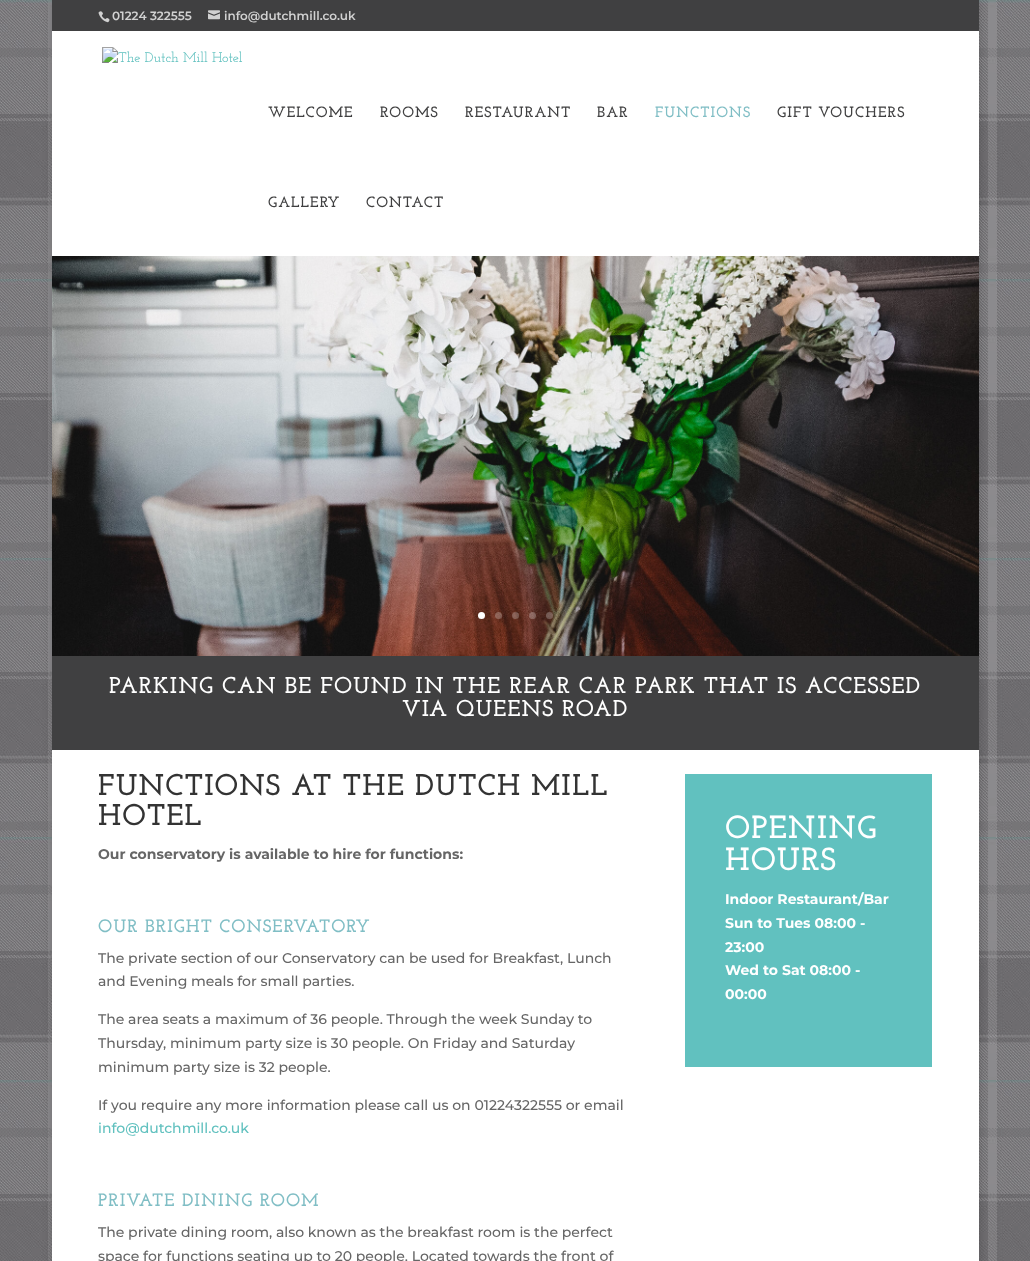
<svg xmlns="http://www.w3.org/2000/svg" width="1030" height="1261">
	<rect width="100%" height="100%" fill="#FFFFFF" />
	<image x="0" y="0" width="1030" height="1261" href="assets/img1.png" />
	<rect x="52" y="0" width="927" height="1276" fill="#000000" fill-opacity="0.2" filter="blur(5px)" />
	<rect x="52" y="0" width="927" height="31" fill="#404041" />
	<image x="98" y="11" width="12" height="12" href="assets/img2.png" />
	<text x="112" y="20" font-family="'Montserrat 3'" font-size="12" font-weight="100" fill="#D1D1D1">01224 322555</text>
	<image x="208" y="10" width="12" height="10" href="assets/img3.png" />
	<text x="224" y="20" font-family="'Montserrat 3'" font-size="12" font-weight="100" fill="#D1D1D1">info@dutchmill.co.uk</text>
	<rect x="52" y="31" width="927" height="225" fill="#FFFFFF" />
	<image x="102" y="47" width="141" height="16" href="assets/img4.png" />
	<g font-family="Josefin Slab" font-size="15" font-weight="100" letter-spacing="1" fill="#404041">
		<text x="268" y="117">WELCOME</text>
		<text x="380" y="117">ROOMS</text>
		<text x="465" y="117">RESTAURANT</text>
		<text x="597" y="117">BAR</text>
	</g>
	<text x="655" y="117" font-family="Josefin Slab" font-size="15" font-weight="100" letter-spacing="1" fill="#80BEC5">FUNCTIONS</text>
	<g font-family="Josefin Slab" font-size="15" font-weight="100" letter-spacing="1" fill="#404041">
		<text x="777" y="117">GIFT VOUCHERS</text>
		<text x="268" y="207">GALLERY</text>
		<text x="366" y="207">CONTACT</text>
	</g>
	<image x="52" y="256" width="927" height="400" href="assets/img5.png" />
	<circle cx="481.5" cy="615.5" r="3.5" fill="#FFFFFF" />
	<circle cx="498.5" cy="615.5" r="3.5" fill="#FFFFFF" fill-opacity="0.25" />
	<circle cx="515.5" cy="615.5" r="3.5" fill="#FFFFFF" fill-opacity="0.25" />
	<circle cx="532.5" cy="615.5" r="3.5" fill="#FFFFFF" fill-opacity="0.25" />
	<circle cx="549.5" cy="615.5" r="3.5" fill="#FFFFFF" fill-opacity="0.25" />
	<rect x="52" y="656" width="927" height="94" fill="#404041" />
	<g font-family="Josefin Slab" font-size="23" font-weight="100" letter-spacing="1" fill="#FFFFFF">
		<text x="109" y="693">PARKING CAN BE FOUND IN THE REAR CAR PARK THAT IS ACCESSED</text>
		<text x="402" y="716">VIA QUEENS ROAD</text>
	</g>
	<rect x="52" y="750" width="927" height="511" fill="#FFFFFF" />
	<g font-family="Josefin Slab" font-size="30" font-weight="100" letter-spacing="1" fill="#333333">
		<text x="98" y="795">FUNCTIONS AT THE DUTCH MILL</text>
		<text x="98" y="825">HOTEL</text>
	</g>
	<text x="98" y="859" font-family="Montserrat" font-size="14" font-weight="100" fill="#666666">Our conservatory is available to hire for functions:</text>
	<text x="98" y="932" font-family="Josefin Slab" font-size="18" font-weight="100" letter-spacing="1" fill="#80BEC5">OUR BRIGHT CONSERVATORY</text>
	<g font-family="'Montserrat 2'" font-size="14" font-weight="100" fill="#666666">
		<text x="98" y="963">The private section of our Conservatory can be used for Breakfast, Lunch</text>
		<text x="98" y="986">and Evening meals for small parties.</text>
		<text x="98" y="1024">The area seats a maximum of 36 people. Through the week Sunday to</text>
		<text x="98" y="1048">Thursday, minimum party size is 30 people. On Friday and Saturday</text>
		<text x="98" y="1072">minimum party size is 32 people.</text>
		<text x="98" y="1110">If you require any more information please call us on 01224322555 or email</text>
	</g>
	<text x="98" y="1133" font-family="'Montserrat 2'" font-size="14" font-weight="100" fill="#61C1BF">info@dutchmill.co.uk</text>
	<text x="98" y="1206" font-family="Josefin Slab" font-size="18" font-weight="100" letter-spacing="1" fill="#80BEC5">PRIVATE DINING ROOM</text>
	<g font-family="'Montserrat 2'" font-size="14" font-weight="100" fill="#666666">
		<text x="98" y="1237">The private dining room, also known as the breakfast room is the perfect</text>
		<text x="98" y="1261">space for functions seating up to 20 people. Located towards the front of</text>
	</g>
	<rect x="685" y="774" width="247" height="293" fill="#61C1BF" />
	<g font-family="Josefin Slab" font-size="32" font-weight="100" letter-spacing="1" fill="#FFFFFF">
		<text x="725" y="838">OPENING</text>
		<text x="725" y="870">HOURS</text>
	</g>
	<g font-family="Montserrat" font-size="14" font-weight="100" fill="#FFFFFF">
		<text x="725" y="904">Indoor Restaurant/Bar</text>
		<text x="725" y="928">Sun to Tues 08:00 -</text>
		<text x="725" y="952">23:00</text>
		<text x="725" y="975">Wed to Sat 08:00 -</text>
		<text x="725" y="999">00:00</text>
	</g>
</svg>
